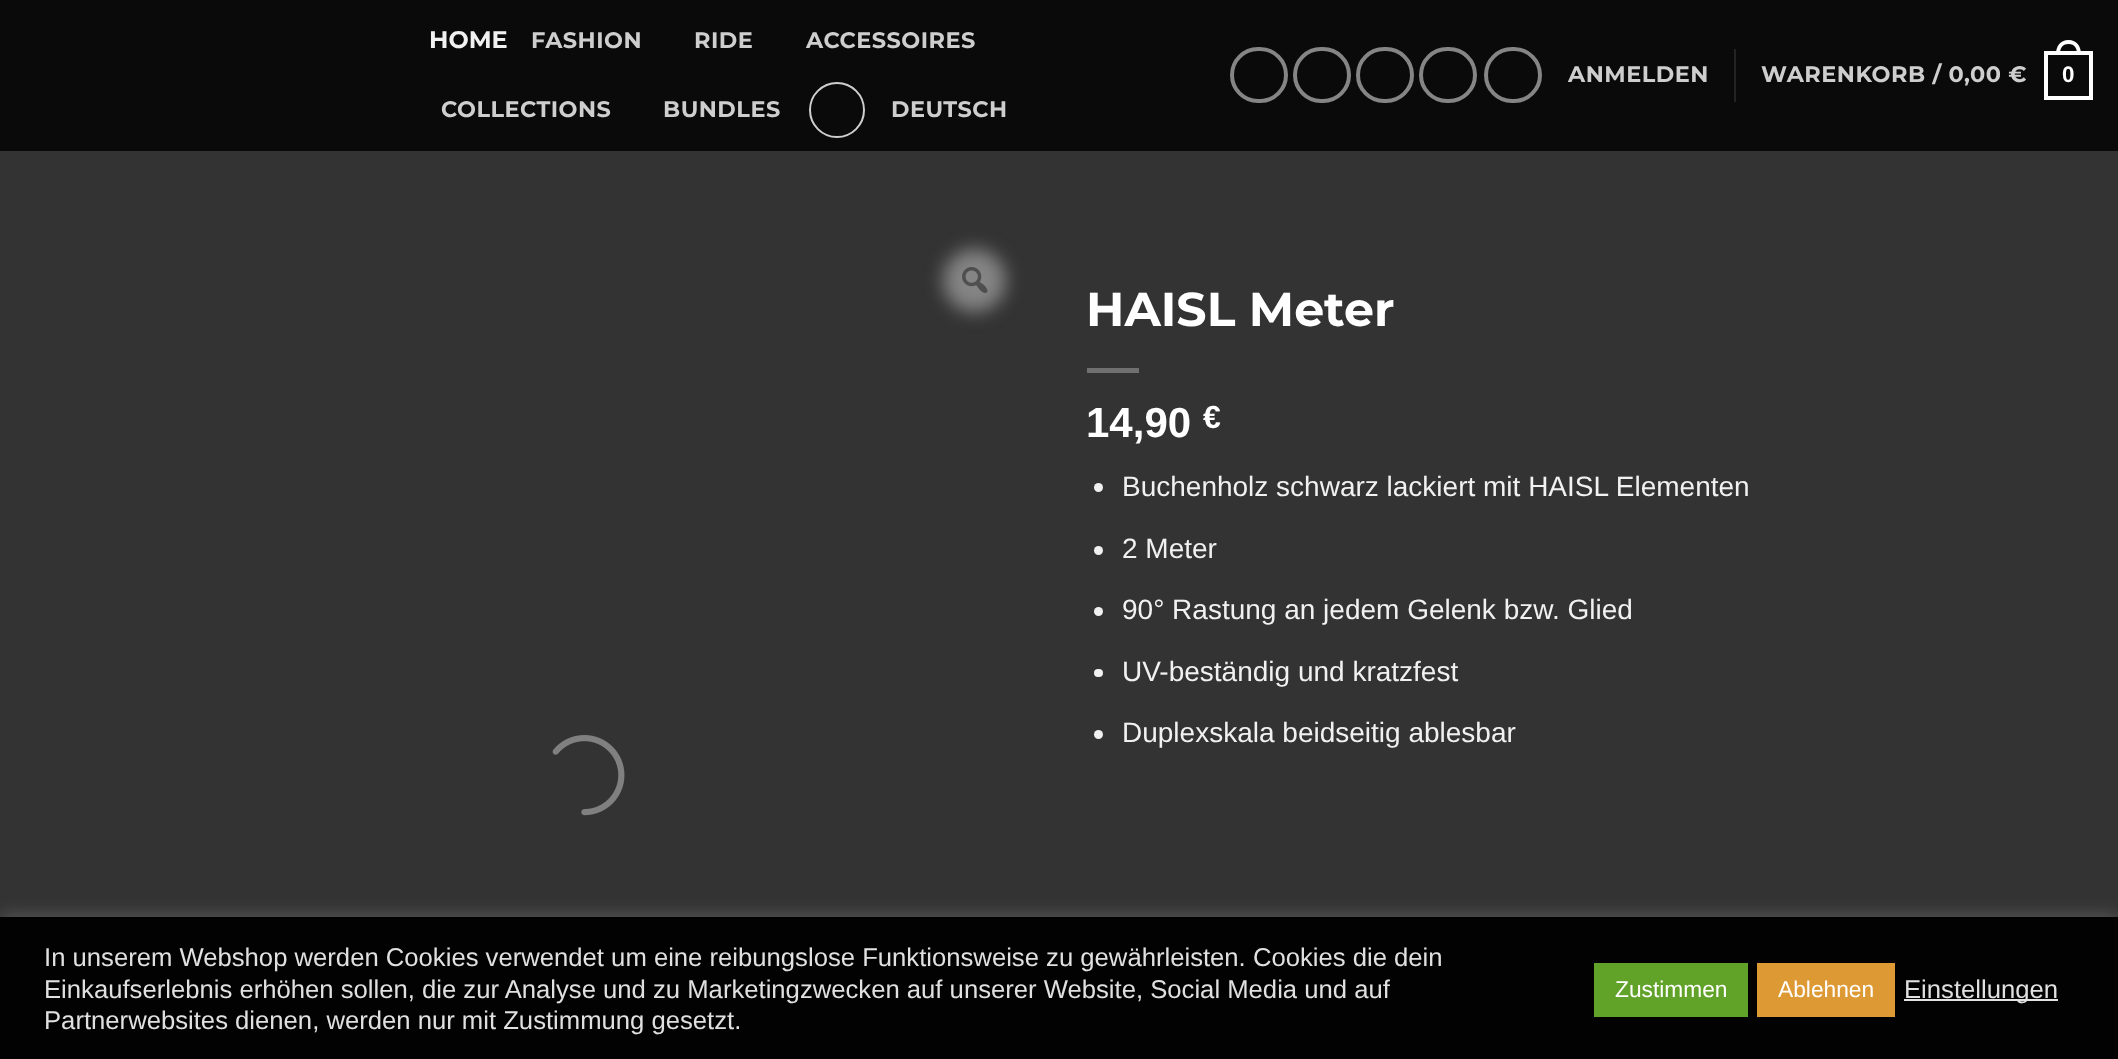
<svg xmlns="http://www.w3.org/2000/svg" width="2118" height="1059">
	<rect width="100%" height="100%" fill="#333333" />
	<rect x="0" y="0" width="2118" height="151" fill="#0A0A0A" />
	<text x="429" y="48" font-family="Montserrat" font-size="24" font-weight="700" fill="#F1F1F1">HOME</text>
	<g font-family="Montserrat" font-size="22.4" font-weight="700" letter-spacing="0.5" fill="#CECECE">
		<text x="531" y="48">FASHION</text>
		<text x="694" y="48">RIDE</text>
		<text x="806" y="48">ACCESSOIRES</text>
		<text x="441" y="117">COLLECTIONS</text>
		<text x="663" y="117">BUNDLES</text>
	</g>
	<circle cx="837" cy="110" r="27" fill="none" stroke="#CECECE" stroke-width="2" />
	<text x="891" y="117" font-family="Montserrat" font-size="22.4" font-weight="700" letter-spacing="0.5" fill="#CECECE">DEUTSCH</text>
	<rect x="1232" y="49" width="54" height="52" rx="26" fill="none" stroke="#858585" stroke-width="4" />
	<rect x="1295" y="49" width="54" height="52" rx="26" fill="none" stroke="#858585" stroke-width="4" />
	<rect x="1358" y="49" width="54" height="52" rx="26" fill="none" stroke="#858585" stroke-width="4" />
	<rect x="1421" y="49" width="54" height="52" rx="26" fill="none" stroke="#858585" stroke-width="4" />
	<rect x="1486" y="49" width="54" height="52" rx="26" fill="none" stroke="#858585" stroke-width="4" />
	<text x="1568" y="82" font-family="Montserrat" font-size="22.4" font-weight="700" letter-spacing="0.5" fill="#CECECE">ANMELDEN</text>
	<rect x="1734" y="49" width="2" height="53" fill="#232323" />
	<text x="1761" y="82" font-family="Montserrat" font-size="22.4" font-weight="700" letter-spacing="0.5" fill="#CECECE">WARENKORB / 0,00 €</text>
	<rect x="2046" y="53" width="45" height="45" fill="none" stroke="#FFFFFF" stroke-width="4" />
	<path d="M2068.5 40C2077 40 2081 46.5 2081 54H2056C2056 46.5 2060 40 2068.5 40ZM2068.5 44C2075 44 2077 48.5 2077 54H2060C2060 48.5 2062 44 2068.5 44Z" fill="#FFFFFF" fill-rule="evenodd" />
	<text x="2062" y="82" font-family="Liberation Sans" font-size="22.4" font-weight="700" letter-spacing="0.5" fill="#FFFFFF">0</text>
	<rect x="943" y="249" width="63" height="63" rx="31.5" fill="#858585" filter="blur(9px)" />
	<image x="962" y="267" width="26" height="26" href="assets/img1.png" />
	<image x="552" y="735" width="73" height="81" href="assets/img2.png" />
	<text x="1086" y="326" font-family="Montserrat" font-size="47.5" font-weight="700" fill="#FFFFFF">HAISL Meter</text>
	<rect x="1087" y="368" width="52" height="5" fill="#707070" />
	<text x="1086" y="437" font-family="Liberation Sans" font-size="42" font-weight="700" fill="#FFFFFF">14,90</text>
	<text x="1203" y="428" font-family="Liberation Sans" font-size="32" font-weight="700" fill="#FFFFFF">€</text>
	<circle cx="1098.5" cy="487.5" r="4.5" fill="#F1F1F1" />
	<text x="1122" y="496" font-family="Liberation Sans" font-size="28" fill="#F1F1F1">Buchenholz schwarz lackiert mit HAISL Elementen</text>
	<circle cx="1098.5" cy="550.5" r="4.5" fill="#F1F1F1" />
	<text x="1122" y="558" font-family="Liberation Sans" font-size="28" fill="#F1F1F1">2 Meter</text>
	<circle cx="1098.5" cy="611.5" r="4.5" fill="#F1F1F1" />
	<text x="1122" y="619" font-family="Liberation Sans" font-size="28" fill="#F1F1F1">90° Rastung an jedem Gelenk bzw. Glied</text>
	<rect x="1094" y="669" width="9" height="8" rx="4" fill="#F1F1F1" />
	<text x="1122" y="681" font-family="Liberation Sans" font-size="28" fill="#F1F1F1">UV-beständig und kratzfest</text>
	<circle cx="1098.5" cy="734.5" r="4.5" fill="#F1F1F1" />
	<text x="1122" y="742" font-family="Liberation Sans" font-size="28" fill="#F1F1F1">Duplexskala beidseitig ablesbar</text>
	<rect x="0" y="915" width="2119" height="144" fill="#ACABAB" fill-opacity="0.3" filter="blur(9px)" />
	<rect x="0" y="917" width="2118" height="142" fill="#020202" />
	<g font-family="Liberation Sans" font-size="25.67" fill="#E0E0E0">
		<text x="44" y="966">In unserem Webshop werden Cookies verwendet um eine reibungslose Funktionsweise zu gewährleisten. Cookies die dein</text>
		<text x="44" y="998">Einkaufserlebnis erhöhen sollen, die zur Analyse und zu Marketingzwecken auf unserer Website, Social Media und auf</text>
		<text x="44" y="1029">Partnerwebsites dienen, werden nur mit Zustimmung gesetzt.</text>
	</g>
	<rect x="1594" y="963" width="154" height="54" fill="#61A229" />
	<text x="1615" y="997" font-family="Liberation Sans" font-size="22.75" fill="#FFFFFF">Zustimmen</text>
	<rect x="1757" y="963" width="138" height="54" fill="#DD9933" />
	<text x="1778" y="997" font-family="Liberation Sans" font-size="22.75" fill="#FFFFFF">Ablehnen</text>
	<rect x="1904" y="999" width="154" height="2" fill="#E2E2E2" />
	<text x="1904" y="998" font-family="Liberation Sans" font-size="25.67" fill="#E0E0E0">Einstellungen</text>
</svg>
